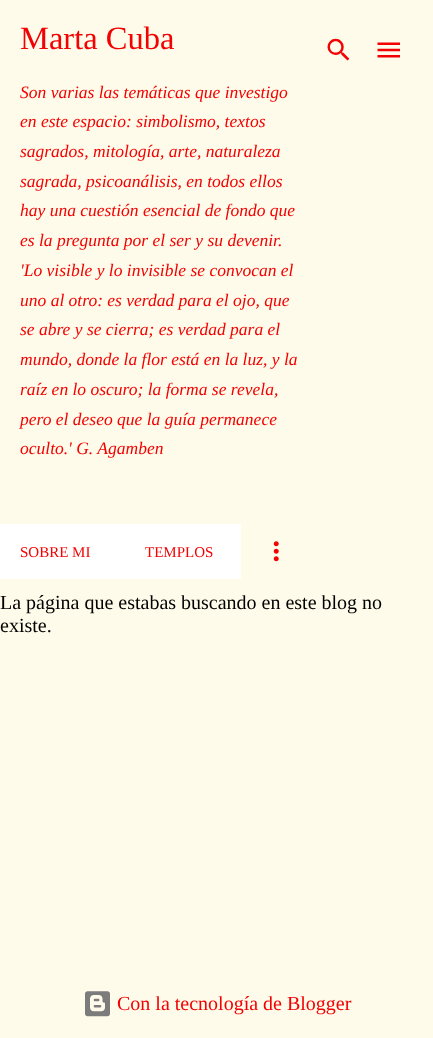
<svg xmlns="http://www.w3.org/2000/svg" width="433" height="1038">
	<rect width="100%" height="100%" fill="#FEFBEA" />
	<text x="20" y="49" font-family="Liberation Serif" font-size="32.5" fill="#F20202">Marta Cuba</text>
	<g font-family="Liberation Serif" font-size="17.5" font-style="italic" fill="#F20202">
		<text x="20" y="98">Son varias las temáticas que investigo</text>
		<text x="20" y="127">en este espacio: simbolismo, textos</text>
		<text x="20" y="157">sagrados, mitología, arte, naturaleza</text>
		<text x="20" y="187">sagrada, psicoanálisis, en todos ellos</text>
		<text x="20" y="216">hay una cuestión esencial de fondo que</text>
		<text x="20" y="246">es la pregunta por el ser y su devenir.</text>
		<text x="20" y="276">'Lo visible y lo invisible se convocan el</text>
		<text x="20" y="306">uno al otro: es verdad para el ojo, que</text>
		<text x="20" y="335">se abre y se cierra; es verdad para el</text>
		<text x="20" y="365">mundo, donde la flor está en la luz, y la</text>
		<text x="20" y="395">raíz en lo oscuro; la forma se revela,</text>
		<text x="20" y="425">pero el deseo que la guía permanece</text>
		<text x="20" y="454">oculto.' G. Agamben</text>
	</g>
	<image x="327" y="38" width="23" height="23" href="assets/img1.png" />
	<image x="377" y="42" width="23" height="16" href="assets/img2.png" />
	<rect x="0" y="524" width="241" height="55" fill="#FFFFFF" />
	<g font-family="Liberation Serif" font-size="15" fill="#F20202">
		<text x="20" y="557">SOBRE MI</text>
		<text x="145" y="557">TEMPLOS</text>
	</g>
	<image x="273" y="541" width="6" height="21" href="assets/img3.png" />
	<g font-family="Liberation Serif" font-size="20" fill="#000000">
		<text x="0" y="609">La página que estabas buscando en este blog no</text>
		<text x="0" y="632">existe.</text>
	</g>
	<image x="85" y="991" width="25" height="26" href="assets/img4.png" />
	<text x="117" y="1010" font-family="Liberation Serif" font-size="20" fill="#F20202">Con la tecnología de Blogger</text>
</svg>
